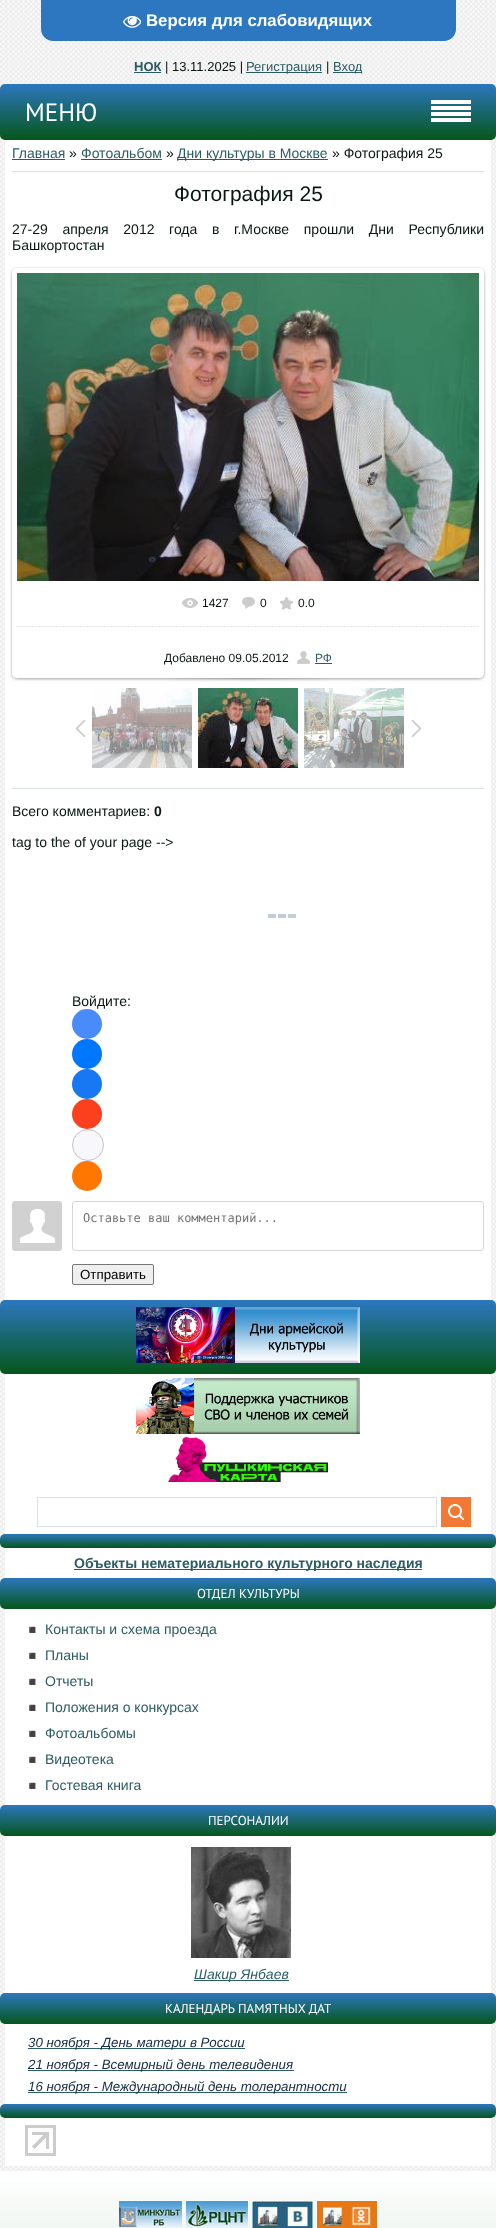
<svg xmlns="http://www.w3.org/2000/svg" width="496" height="2228">
	<defs>
		<linearGradient id="g1" gradientUnits="userSpaceOnUse" x1="248" y1="84" x2="248" y2="140"><stop offset="0" stop-color="#2C77BF" /><stop offset="1" stop-color="#06561B" /></linearGradient>
		<clipPath id="clip1"><path d="M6 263H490V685H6ZM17 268H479C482 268 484 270 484 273V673C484 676 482 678 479 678H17C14 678 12 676 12 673V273C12 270 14 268 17 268Z" clip-rule="evenodd" /></clipPath>
		<linearGradient id="g2" gradientUnits="userSpaceOnUse" x1="248" y1="1300" x2="248" y2="1374"><stop offset="0" stop-color="#2C77BF" /><stop offset="1" stop-color="#06561B" /></linearGradient>
		<linearGradient id="g3" gradientUnits="userSpaceOnUse" x1="248" y1="1534" x2="248" y2="1548"><stop offset="0" stop-color="#2C77BF" /><stop offset="1" stop-color="#06561B" /></linearGradient>
		<linearGradient id="g4" gradientUnits="userSpaceOnUse" x1="248" y1="1578" x2="248" y2="1609"><stop offset="0" stop-color="#2C77BF" /><stop offset="1" stop-color="#06561B" /></linearGradient>
		<linearGradient id="g5" gradientUnits="userSpaceOnUse" x1="248" y1="1805" x2="248" y2="1836"><stop offset="0" stop-color="#2C77BF" /><stop offset="1" stop-color="#06561B" /></linearGradient>
		<linearGradient id="g6" gradientUnits="userSpaceOnUse" x1="248" y1="1993" x2="248" y2="2024"><stop offset="0" stop-color="#2C77BF" /><stop offset="1" stop-color="#06561B" /></linearGradient>
		<linearGradient id="g7" gradientUnits="userSpaceOnUse" x1="248" y1="2104" x2="248" y2="2118"><stop offset="0" stop-color="#2C77BF" /><stop offset="1" stop-color="#06561B" /></linearGradient>
		<linearGradient id="g8" gradientUnits="userSpaceOnUse" x1="248" y1="2171" x2="248" y2="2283"><stop offset="0" stop-color="#FFFFFF" /><stop offset="1" stop-color="#E2EFE6" /></linearGradient>
	</defs>
	<rect width="100%" height="100%" fill="#FFFFFF" />
	<image x="0" y="0" width="496" height="2171" href="assets/img1.png" />
	<path d="M41 0H456V29C456 35.5 450.5 41 444 41H53C46.5 41 41 35.5 41 29Z" fill="#2C77BF" />
	<image x="123" y="15" width="18" height="13" href="assets/img2.png" />
	<text x="146" y="26" font-family="Liberation Sans" font-size="16.75" font-weight="700" fill="#FFFFFF">Версия для слабовидящих</text>
	<text x="134" y="71" font-family="Liberation Sans" font-size="13" font-weight="700" fill="#2C5C63">НОК</text>
	<rect x="134" y="72" width="27" height="1" fill="#2C5C63" />
	<text x="165" y="71" font-family="Liberation Sans" font-size="13" fill="#091714">| 13.11.2025 |</text>
	<rect x="246" y="72" width="76" height="1" fill="#2C5C63" />
	<text x="246" y="71" font-family="Liberation Sans" font-size="13" fill="#2C5C63">Регистрация</text>
	<text x="326" y="71" font-family="Liberation Sans" font-size="13" fill="#091714">|</text>
	<rect x="333" y="72" width="29" height="1" fill="#2C5C63" />
	<text x="333" y="71" font-family="Liberation Sans" font-size="13" fill="#2C5C63">Вход</text>
	<rect x="0" y="84" width="496" height="56" rx="5" fill="url(#g1)" />
	<text x="25" y="121" font-family="PT Sans" font-size="25" fill="#FFFFFF">МЕНЮ</text>
	<rect x="431" y="100" width="40" height="4" fill="#FFFFFF" />
	<rect x="431" y="106" width="40" height="4" fill="#FFFFFF" />
	<rect x="431" y="112" width="40" height="4" fill="#FFFFFF" />
	<rect x="431" y="118" width="40" height="4" fill="#FFFFFF" />
	<rect x="5" y="140" width="486" height="1160" fill="#FFFFFF" />
	<text x="12" y="158" font-family="Liberation Sans" font-size="14" fill="#2C5C63">Главная</text>
	<rect x="12" y="159" width="53" height="1" fill="#2C5C63" />
	<text x="69" y="158" font-family="Liberation Sans" font-size="14" fill="#091714">»</text>
	<text x="81" y="158" font-family="Liberation Sans" font-size="14" fill="#2C5C63">Фотоальбом</text>
	<rect x="81" y="159" width="81" height="1" fill="#2C5C63" />
	<text x="166" y="158" font-family="Liberation Sans" font-size="14" fill="#091714">»</text>
	<rect x="177" y="159" width="151" height="1" fill="#2C5C63" />
	<text x="177" y="158" font-family="Liberation Sans" font-size="14" fill="#2C5C63">Дни культуры в Москве</text>
	<text x="332" y="158" font-family="Liberation Sans" font-size="14" fill="#091714">» Фотография 25</text>
	<rect x="12" y="171" width="472" height="1" fill="#DBE1E8" />
	<text x="174" y="201" font-family="Liberation Sans" font-size="21" fill="#091714">Фотография 25</text>
	<g font-family="Liberation Sans" font-size="14" fill="#091714">
		<text x="12" y="234" word-spacing="10.75">27-29 апреля 2012 года в г.Москве прошли Дни Республики</text>
		<text x="12" y="250">Башкортостан</text>
	</g>
	<g clip-path="url(#clip1)">
		<rect x="12" y="269" width="472" height="410" rx="5" fill="#000000" fill-opacity="0.37" filter="blur(1.5px)" />
	</g>
	<image x="17" y="273" width="462" height="308" href="assets/img3.png" />
	<image x="182" y="598" width="16" height="10" href="assets/img4.png" />
	<text x="202" y="607" font-family="Liberation Sans" font-size="12" fill="#091714">1427</text>
	<image x="242" y="597" width="13" height="12" href="assets/img5.png" />
	<text x="260" y="607" font-family="Liberation Sans" font-size="12" fill="#091714">0</text>
	<image x="280" y="597" width="13" height="13" href="assets/img6.png" />
	<text x="298" y="607" font-family="Liberation Sans" font-size="12" fill="#091714">0.0</text>
	<image x="17" y="626" width="461" height="1" href="assets/img7.png" />
	<text x="164" y="662" font-family="Liberation Sans" font-size="12" fill="#091714">Добавлено 09.05.2012</text>
	<image x="297" y="651" width="13" height="13" href="assets/img8.png" />
	<text x="315" y="662" font-family="Liberation Sans" font-size="12" fill="#2C5C63">РФ</text>
	<rect x="315" y="663" width="17" height="1" fill="#2C5C63" />
	<image x="168" y="678" width="161" height="3" href="assets/img9.png" />
	<image x="75" y="720" width="11" height="17" href="assets/img10.png" />
	<image x="92" y="688" width="100" height="80" href="assets/img11.png" />
	<image x="198" y="688" width="100" height="80" href="assets/img12.png" />
	<image x="304" y="688" width="100" height="80" href="assets/img13.png" />
	<image x="411" y="720" width="11" height="17" href="assets/img14.png" />
	<rect x="12" y="788" width="472" height="1" fill="#DBE1E8" />
	<text x="12" y="816" font-family="Liberation Sans" font-size="14" fill="#091714">Всего комментариев:</text>
	<text x="154" y="816" font-family="Liberation Sans" font-size="14" font-weight="700" fill="#091714">0</text>
	<text x="12" y="847" font-family="Liberation Sans" font-size="14" fill="#091714">tag to the of your page --&gt;</text>
	<image x="268" y="914" width="28" height="4" href="assets/img15.png" />
	<text x="72" y="1006" font-family="Liberation Sans" font-size="14" fill="#091714">Войдите:</text>
	<circle cx="87" cy="1024" r="15" fill="#498BFA" />
	<circle cx="87" cy="1054" r="15" fill="#0077FF" />
	<circle cx="87" cy="1084" r="15" fill="#1877F2" />
	<circle cx="87" cy="1114" r="15" fill="#FC3F1D" />
	<circle cx="88" cy="1145" r="15.5" fill="#F8F8FC" stroke="#C4C4C4" />
	<circle cx="87" cy="1176" r="15" fill="#FF7700" />
	<image x="12" y="1201" width="50" height="50" href="assets/img16.png" />
	<rect x="72.5" y="1201.5" width="411" height="49" rx="2.5" fill="none" stroke="#D6D6D6" />
	<text x="83" y="1222" font-family="DejaVu Sans Mono" font-size="12" fill="#757575">Оставьте ваш комментарий...</text>
	<rect x="72.5" y="1264.5" width="81" height="20" rx="1.5" fill="#EFEFEF" stroke="#767676" />
	<text x="80" y="1279" font-family="Liberation Sans" font-size="13.3" fill="#000000">Отправить</text>
	<rect x="5" y="1374" width="486" height="792" fill="#FFFFFF" />
	<rect x="0" y="1300" width="496" height="74" rx="5" fill="url(#g2)" />
	<image x="136" y="1307" width="224" height="56" href="assets/img17.png" />
	<image x="136" y="1378" width="224" height="56" href="assets/img18.png" />
	<image x="168" y="1437" width="160" height="45" href="assets/img19.png" />
	<rect x="37.5" y="1497.5" width="399" height="29" fill="none" stroke="#DBE1E8" />
	<rect x="441" y="1497" width="30" height="30" fill="#F27935" />
	<image x="448" y="1504" width="16" height="16" href="assets/img20.png" />
	<rect x="0" y="1534" width="496" height="14" rx="5" fill="url(#g3)" />
	<rect x="74" y="1569" width="348" height="1" fill="#2C5C63" />
	<text x="74" y="1568" font-family="Liberation Sans" font-size="14" font-weight="700" fill="#2C5C63">Объекты нематериального культурного наследия</text>
	<rect x="0" y="1578" width="496" height="31" rx="5" fill="url(#g4)" />
	<text x="197" y="1598" font-family="PT Sans" font-size="13" fill="#FFFFFF">ОТДЕЛ КУЛЬТУРЫ</text>
	<text x="25" y="1634" font-family="Noto Color Emoji" font-size="12" fill="#DADDDF">◾</text>
	<text x="45" y="1634" font-family="Liberation Sans" font-size="14" fill="#2C5C63">Контакты и схема проезда</text>
	<text x="25" y="1660" font-family="Noto Color Emoji" font-size="12" fill="#DADDDF">◾</text>
	<text x="45" y="1660" font-family="Liberation Sans" font-size="14" fill="#2C5C63">Планы</text>
	<text x="25" y="1686" font-family="Noto Color Emoji" font-size="12" fill="#DADDDF">◾</text>
	<text x="45" y="1686" font-family="Liberation Sans" font-size="14" fill="#2C5C63">Отчеты</text>
	<text x="25" y="1712" font-family="Noto Color Emoji" font-size="12" fill="#DADDDF">◾</text>
	<text x="45" y="1712" font-family="Liberation Sans" font-size="14" fill="#2C5C63">Положения о конкурсах</text>
	<text x="25" y="1738" font-family="Noto Color Emoji" font-size="12" fill="#DADDDF">◾</text>
	<text x="45" y="1738" font-family="Liberation Sans" font-size="14" fill="#2C5C63">Фотоальбомы</text>
	<text x="25" y="1764" font-family="Noto Color Emoji" font-size="12" fill="#DADDDF">◾</text>
	<text x="45" y="1764" font-family="Liberation Sans" font-size="14" fill="#2C5C63">Видеотека</text>
	<text x="25" y="1790" font-family="Noto Color Emoji" font-size="12" fill="#DADDDF">◾</text>
	<text x="45" y="1790" font-family="Liberation Sans" font-size="14" fill="#2C5C63">Гостевая книга</text>
	<rect x="0" y="1805" width="496" height="31" rx="5" fill="url(#g5)" />
	<text x="208" y="1825" font-family="PT Sans" font-size="13" fill="#FFFFFF">ПЕРСОНАЛИИ</text>
	<image x="191" y="1847" width="100" height="111" href="assets/img21.png" />
	<rect x="194" y="1980" width="95" height="1" fill="#2C5C63" />
	<text x="194" y="1979" font-family="Liberation Sans" font-size="14" font-style="italic" fill="#2C5C63">Шакир Янбаев</text>
	<rect x="0" y="1993" width="496" height="31" rx="5" fill="url(#g6)" />
	<text x="165" y="2013" font-family="PT Sans" font-size="13" fill="#FFFFFF">КАЛЕНДАРЬ ПАМЯТНЫХ ДАТ</text>
	<rect x="28" y="2048" width="217" height="1" fill="#2C5C63" />
	<text x="28" y="2047" font-family="Liberation Sans" font-size="13.3" font-style="italic" fill="#162B44">30 ноября - День матери в России</text>
	<rect x="28" y="2070" width="266" height="1" fill="#2C5C63" />
	<text x="28" y="2069" font-family="Liberation Sans" font-size="13.3" font-style="italic" fill="#162B44">21 ноября - Всемирный день телевидения</text>
	<rect x="28" y="2092" width="319" height="1" fill="#2C5C63" />
	<text x="28" y="2091" font-family="Liberation Sans" font-size="13.3" font-style="italic" fill="#162B44">16 ноября - Международный день толерантности</text>
	<rect x="0" y="2104" width="496" height="14" rx="5" fill="url(#g7)" />
	<image x="25" y="2125" width="31" height="31" href="assets/img22.png" />
	<rect x="0" y="2181" width="496" height="47" fill="url(#g8)" />
	<image x="119" y="2201" width="63" height="27" href="assets/img23.png" />
	<image x="186" y="2201" width="62" height="27" href="assets/img24.png" />
	<image x="252" y="2201" width="61" height="27" href="assets/img25.png" />
	<image x="317" y="2201" width="60" height="27" href="assets/img26.png" />
</svg>
